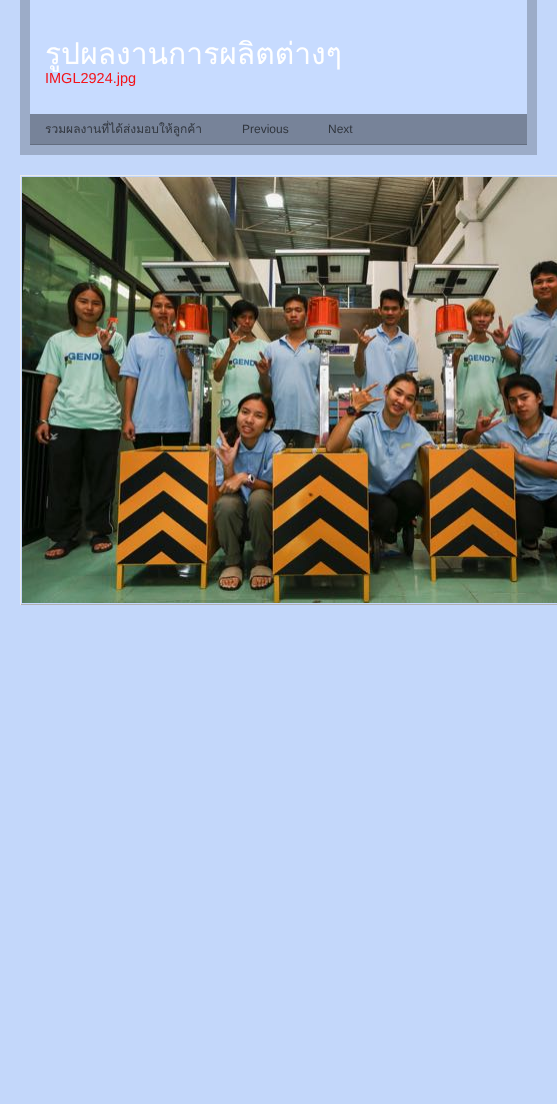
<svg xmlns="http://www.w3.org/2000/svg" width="557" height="1104">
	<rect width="100%" height="100%" fill="#C3D7FA" />
	<rect x="30" y="0" width="497" height="114" fill="#C7DBFF" />
	<rect x="527" y="0" width="10" height="145" fill="#9CACC8" />
	<rect x="30" y="145" width="507" height="10" fill="#9CACC8" />
	<rect x="20" y="0" width="10" height="155" fill="#9CACC8" />
	<text x="45" y="64" font-family="Loma" font-size="30" fill="#FFFFFF">รูปผลงานการผลิตต่างๆ</text>
	<text x="45" y="83" font-family="Liberation Sans" font-size="14.5" fill="#F3131A">IMGL2924.jpg</text>
	<rect x="30" y="114" width="497" height="30" fill="#778399" />
	<rect x="30" y="144" width="497" height="1" fill="#636D7F" />
	<text x="45" y="133" font-family="Loma" font-size="12" fill="#31363E">รวมผลงานที่ได้ส่งมอบให้ลูกค้า</text>
	<g font-family="Liberation Sans" font-size="12" fill="#31363E">
		<text x="242" y="133">Previous</text>
		<text x="328" y="133">Next</text>
	</g>
	<rect x="20" y="175" width="537" height="1" fill="#EAEAEA" />
	<rect x="20" y="604" width="537" height="1" fill="#B0B0B0" />
	<rect x="20" y="175" width="1" height="430" fill="#EAEAEA" />
	<image x="22" y="177" width="535" height="426" href="assets/img1.png" />
</svg>
